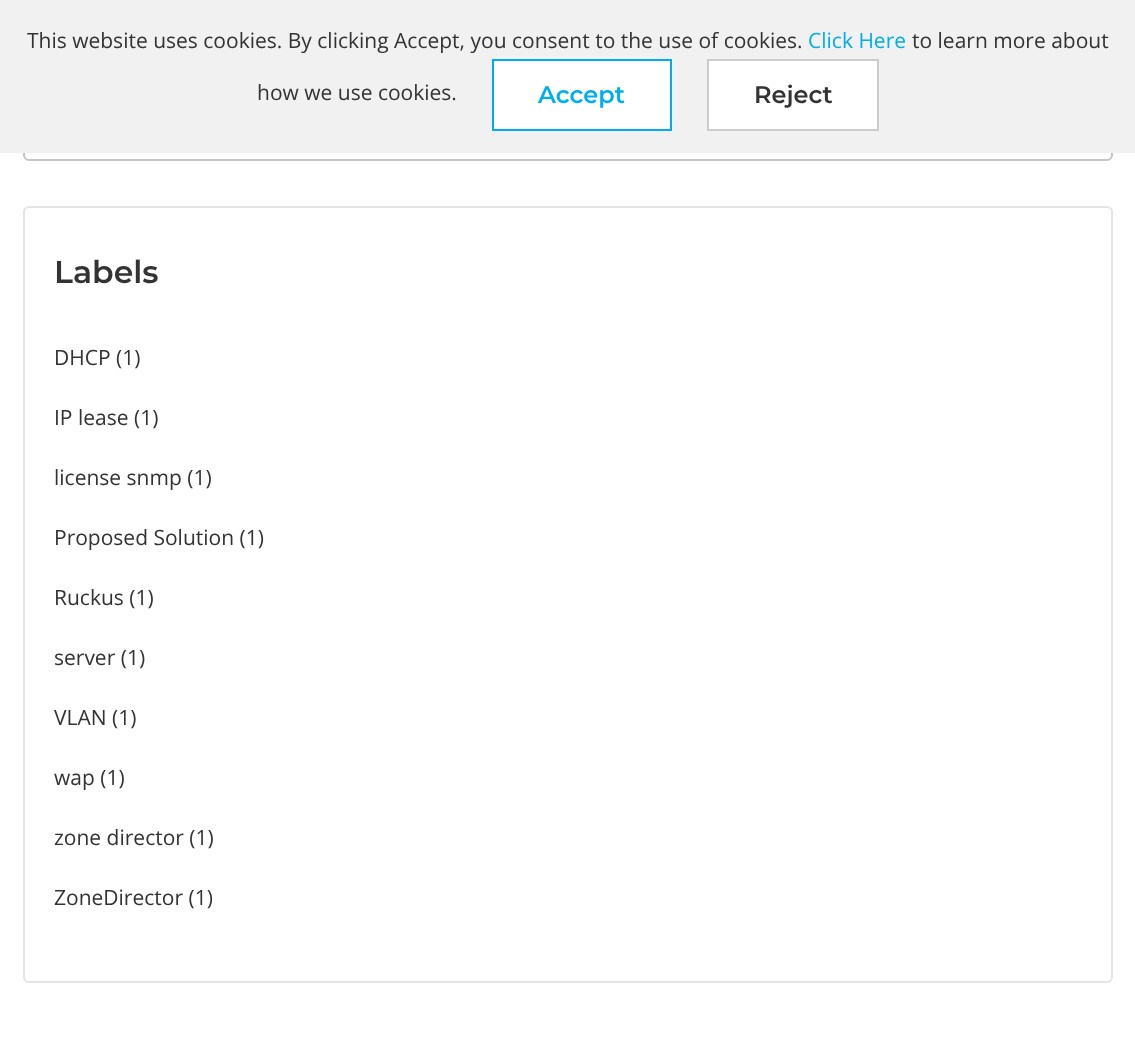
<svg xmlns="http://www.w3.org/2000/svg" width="1135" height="1047">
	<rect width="100%" height="100%" fill="#FFFFFF" />
	<rect x="24" y="69" width="1088" height="91" rx="5" fill="none" stroke="#C4C4C4" stroke-width="2" />
	<rect x="0" y="0" width="1135" height="153" fill="#F1F1F1" />
	<text x="27" y="48" font-family="Open Sans" font-size="21" fill="#333333">This website uses cookies. By clicking Accept, you consent to the use of cookies.</text>
	<text x="808" y="48" font-family="Open Sans" font-size="21" fill="#00ADEF">Click Here</text>
	<g font-family="Open Sans" font-size="21" fill="#333333">
		<text x="912" y="48">to learn more about</text>
		<text x="257" y="100">how we use cookies.</text>
	</g>
	<rect x="493" y="60" width="178" height="70" fill="#FFFFFF" stroke="#00ADEF" stroke-width="2" />
	<text x="538" y="103" font-family="Montserrat" font-size="24" font-weight="100" fill="#00ADEF">Accept</text>
	<rect x="708" y="60" width="170" height="70" fill="#FFFFFF" stroke="#CCCCCC" stroke-width="2" />
	<text x="754" y="103" font-family="Montserrat" font-size="24" font-weight="100" fill="#333333">Reject</text>
	<rect x="24" y="207" width="1088" height="775" rx="5" fill="none" stroke="#E4E4E4" stroke-width="2" />
	<text x="54" y="283" font-family="Montserrat" font-size="31.5" font-weight="100" fill="#333333">Labels</text>
	<g font-family="Open Sans" font-size="21" fill="#333333">
		<text x="54" y="365">DHCP (1)</text>
		<text x="54" y="425">IP lease (1)</text>
		<text x="54" y="485">license snmp (1)</text>
		<text x="54" y="545">Proposed Solution (1)</text>
		<text x="54" y="605">Ruckus (1)</text>
		<text x="54" y="665">server (1)</text>
		<text x="54" y="725">VLAN (1)</text>
		<text x="54" y="785">wap (1)</text>
		<text x="54" y="845">zone director (1)</text>
		<text x="54" y="905">ZoneDirector (1)</text>
	</g>
</svg>
